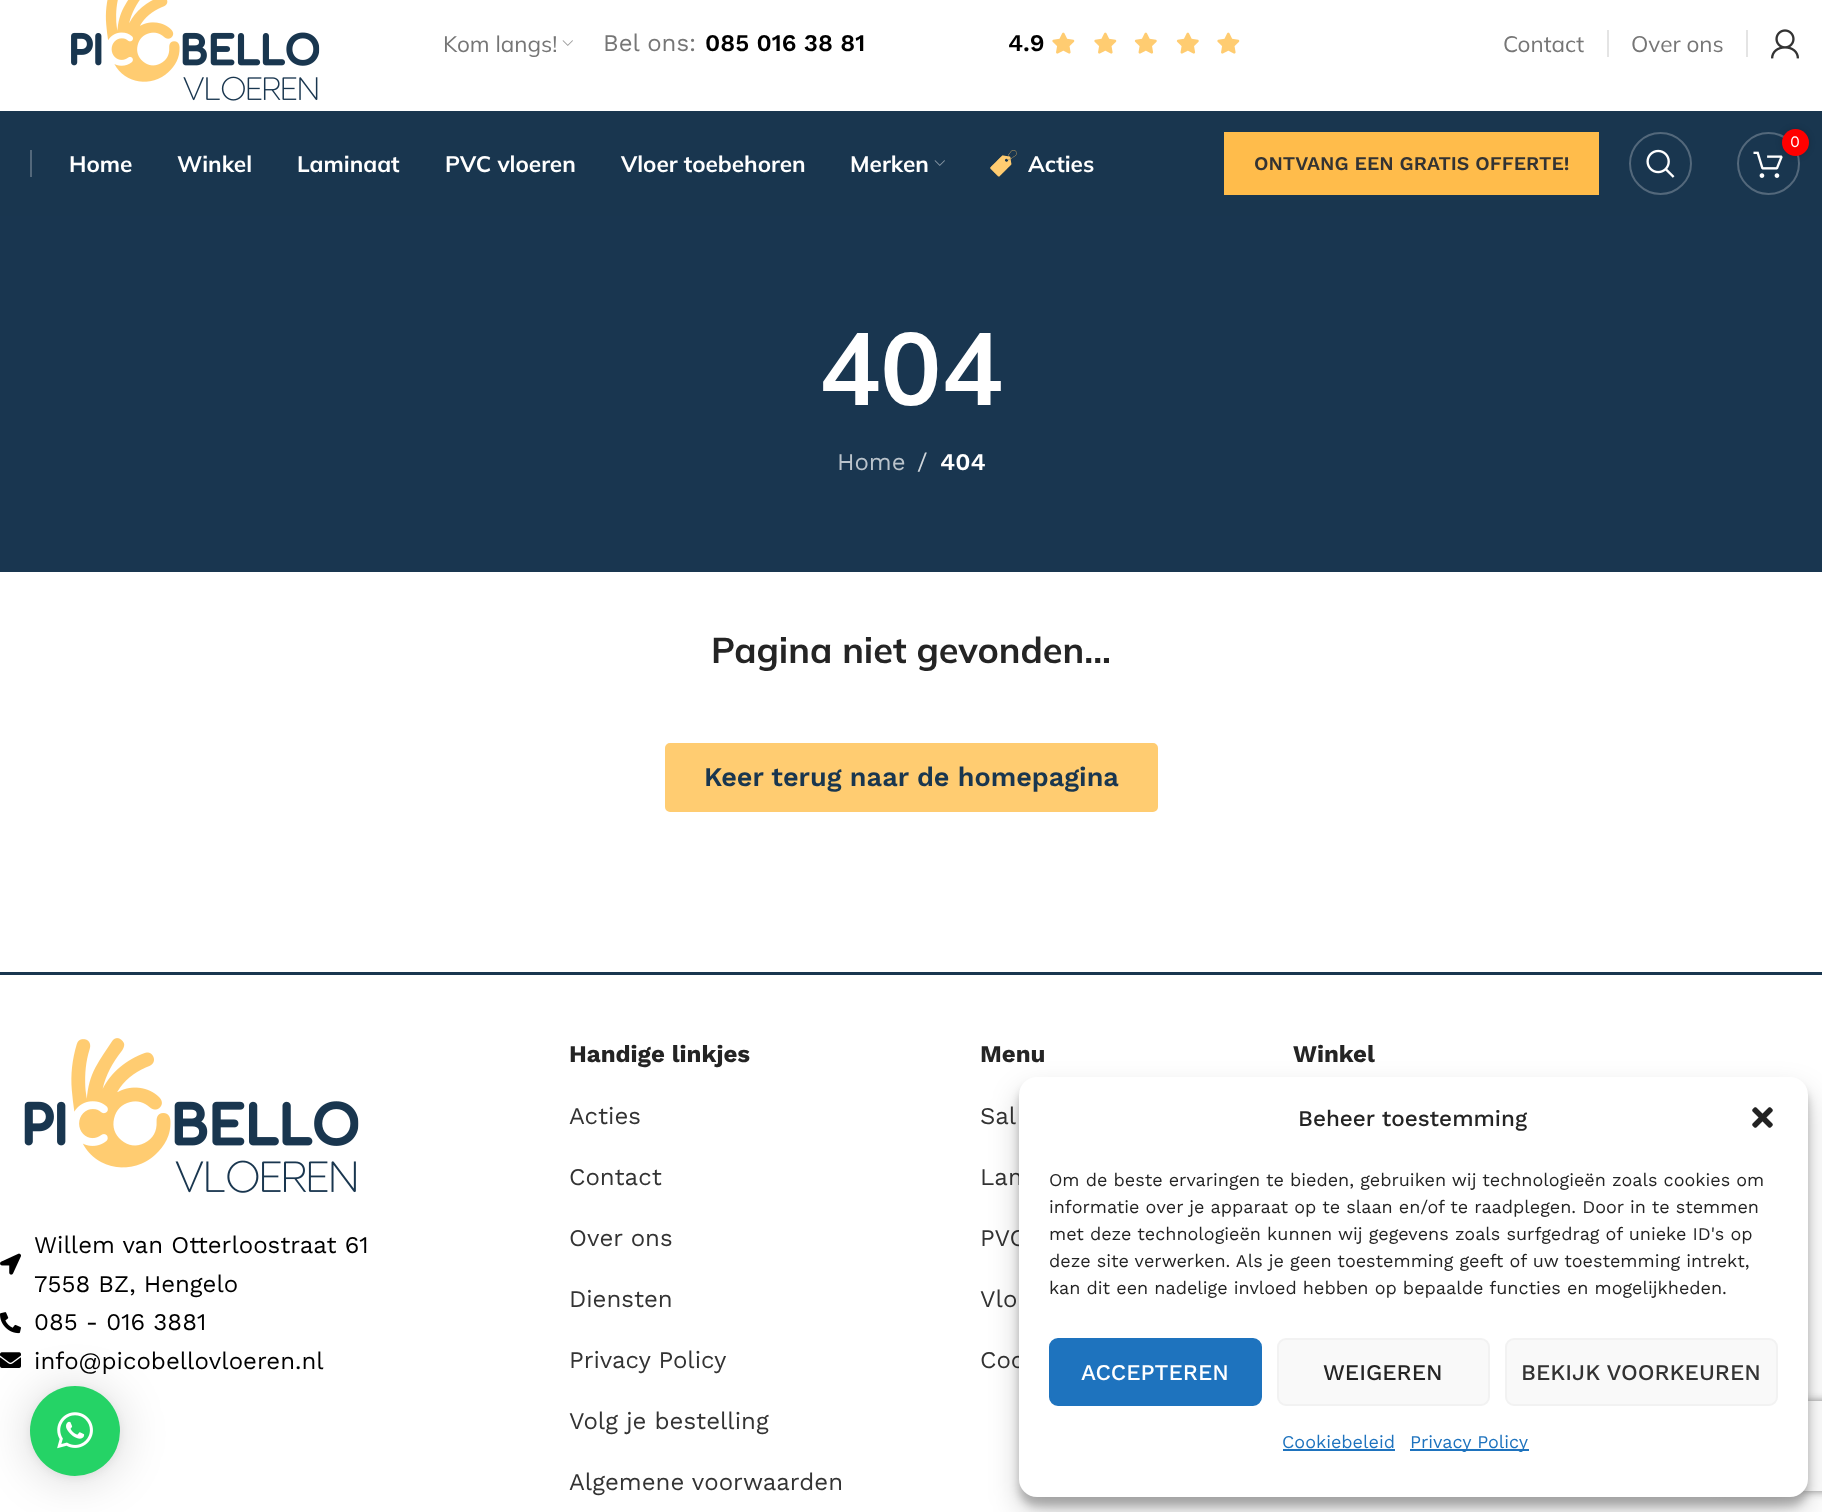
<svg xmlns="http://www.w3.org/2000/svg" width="1822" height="1512">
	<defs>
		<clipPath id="clip1"><path d="M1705 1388H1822V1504H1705ZM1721 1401H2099C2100.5 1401 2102 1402.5 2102 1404V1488C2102 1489.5 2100.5 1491 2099 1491H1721C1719.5 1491 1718 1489.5 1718 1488V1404C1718 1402.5 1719.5 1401 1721 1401Z" clip-rule="evenodd" /></clipPath>
	</defs>
	<rect width="100%" height="100%" fill="#FFFFFF" />
	<image x="71" y="0" width="249" height="101" href="assets/img1.png" />
	<text x="443" y="52" font-family="Mulish" font-size="22.5" fill="#767676">Kom langs!</text>
	<image x="562" y="40" width="11" height="6" href="assets/img2.png" />
	<text x="603" y="51" font-family="Work Sans" font-size="24" fill="#767676">Bel ons:</text>
	<g font-family="Work Sans" font-size="24" font-weight="600" fill="#000000">
		<text x="705" y="51">085 016 38 81</text>
		<text x="1008" y="51">4.9</text>
	</g>
	<image x="1052" y="32" width="23" height="22" href="assets/img3.png" />
	<image x="1094" y="32" width="23" height="22" href="assets/img3.png" />
	<image x="1134" y="32" width="23" height="22" href="assets/img4.png" />
	<image x="1176" y="32" width="23" height="22" href="assets/img4.png" />
	<image x="1217" y="32" width="23" height="22" href="assets/img3.png" />
	<text x="1503" y="52" font-family="Mulish" font-size="22.5" fill="#767676">Contact</text>
	<rect x="1607" y="30" width="2" height="27" fill="#E4E4E4" />
	<text x="1631" y="52" font-family="Mulish" font-size="22.5" fill="#767676">Over ons</text>
	<rect x="1746" y="30" width="2" height="27" fill="#E4E4E4" />
	<image x="1771" y="29" width="28" height="30" href="assets/img5.png" />
	<rect x="0" y="111" width="1822" height="105" fill="#19364F" />
	<rect x="30" y="150" width="2" height="27" fill="#53687B" />
	<g font-family="Mulish" font-size="22.5" font-weight="700" fill="#FFFFFF">
		<text x="69" y="172">Home</text>
		<text x="177" y="172">Winkel</text>
		<text x="297" y="172">Laminaat</text>
		<text x="445" y="172">PVC vloeren</text>
		<text x="621" y="172">Vloer toebehoren</text>
		<text x="850" y="172">Merken</text>
	</g>
	<image x="934" y="160" width="11" height="6" href="assets/img6.png" />
	<image x="990" y="150" width="27" height="27" href="assets/img7.png" />
	<text x="1028" y="172" font-family="Mulish" font-size="22.5" font-weight="700" fill="#FFFFFF">Acties</text>
	<circle cx="1660.5" cy="163.5" r="30.5" fill="none" stroke="#53687B" stroke-width="2" />
	<image x="1646" y="149" width="29" height="29" href="assets/img8.png" />
	<circle cx="1768.5" cy="163.5" r="30.5" fill="none" stroke="#53687B" stroke-width="2" />
	<image x="1753" y="151" width="30" height="27" href="assets/img9.png" />
	<rect x="1782" y="129" width="27" height="27" rx="13.5" fill="#000000" fill-opacity="0.17" filter="blur(3px)" />
	<circle cx="1795.5" cy="142.5" r="13.5" fill="#FF0000" />
	<text x="1790" y="147" font-family="Work Sans" font-size="16" fill="#FFFFFF">0</text>
	<rect x="1224" y="132" width="375" height="63" fill="#FFBC4B" />
	<text x="1254" y="170" font-family="Work Sans" font-size="19.5" font-weight="600" fill="#333333">ONTVANG EEN GRATIS OFFERTE!</text>
	<rect x="0" y="216" width="1822" height="356" fill="#193650" />
	<text x="819" y="405" font-family="Mulish" font-size="102" font-weight="700" fill="#FFFFFF">404</text>
	<text x="837" y="470" font-family="Work Sans" font-size="24" fill="#BAC3CB">Home</text>
	<text x="917" y="470" font-family="Work Sans" font-size="24" fill="#D1D7DC">/</text>
	<text x="940" y="470" font-family="Work Sans" font-size="24" font-weight="600" fill="#FFFFFF">404</text>
	<text x="711" y="663" font-family="Mulish" font-size="36" font-weight="700" fill="#242424">Pagina niet gevonden...</text>
	<rect x="666.5" y="744.5" width="490" height="66" rx="3.5" fill="#FFCC71" stroke="#FFCC71" stroke-width="3" />
	<text x="704" y="786" font-family="Work Sans" font-size="27" font-weight="600" fill="#19364F">Keer terug naar de homepagina</text>
	<rect x="0" y="972" width="1822" height="3" fill="#19364F" />
	<image x="24" y="1038" width="335" height="155" href="assets/img10.png" />
	<image x="0" y="1253" width="21" height="22" href="assets/img11.png" />
	<g font-family="Work Sans" font-size="24" fill="#000000">
		<text x="34" y="1253">Willem van Otterloostraat 61</text>
		<text x="34" y="1292">7558 BZ, Hengelo</text>
	</g>
	<image x="0" y="1312" width="21" height="22" href="assets/img12.png" />
	<text x="34" y="1330" font-family="Work Sans" font-size="24" fill="#000000">085 - 016 3881</text>
	<image x="0" y="1352" width="21" height="16" href="assets/img13.png" />
	<text x="34" y="1369" font-family="Work Sans" font-size="24" fill="#000000">info@picobellovloeren.nl</text>
	<text x="569" y="1062" font-family="Work Sans" font-size="24" font-weight="700" fill="#242424">Handige linkjes</text>
	<g font-family="Work Sans" font-size="24" fill="#333333">
		<text x="569" y="1124">Acties</text>
		<text x="569" y="1185">Contact</text>
		<text x="569" y="1246">Over ons</text>
		<text x="569" y="1307">Diensten</text>
		<text x="569" y="1368">Privacy Policy</text>
		<text x="569" y="1429">Volg je bestelling</text>
		<text x="569" y="1490">Algemene voorwaarden</text>
	</g>
	<text x="980" y="1062" font-family="Work Sans" font-size="24" font-weight="700" fill="#242424">Menu</text>
	<g font-family="Work Sans" font-size="24" fill="#333333">
		<text x="980" y="1124">Sal</text>
		<text x="980" y="1185">Lam</text>
		<text x="980" y="1246">PVC</text>
		<text x="980" y="1307">Vlo</text>
		<text x="980" y="1368">Coo</text>
	</g>
	<text x="1293" y="1062" font-family="Work Sans" font-size="24" font-weight="700" fill="#242424">Winkel</text>
	<rect x="30" y="1389" width="90" height="90" rx="45" fill="#000000" fill-opacity="0.16" filter="blur(24px)" />
	<rect x="30" y="1388" width="90" height="90" rx="45" fill="#000000" fill-opacity="0.06" filter="blur(4.5px)" />
	<circle cx="75" cy="1431" r="45" fill="#25D366" />
	<image x="57" y="1412" width="36" height="37" href="assets/img14.png" />
	<rect x="1019" y="1086" width="789" height="420" rx="18" fill="#000000" fill-opacity="0.23" filter="blur(4.5px)" />
	<rect x="1019" y="1092" width="789" height="420" rx="18" fill="#000000" fill-opacity="0.19" filter="blur(15px)" />
	<g clip-path="url(#clip1)">
		<rect x="1718" y="1401" width="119" height="90" rx="3" fill="#808080" filter="blur(4px)" />
	</g>
	<rect x="1019" y="1077" width="789" height="420" rx="18" fill="#FFFFFF" />
	<text x="1298" y="1126" font-family="Work Sans" font-size="22.5" font-weight="500" fill="#242424">Beheer toestemming</text>
	<image x="1752" y="1107" width="21" height="21" href="assets/img15.png" />
	<g font-family="Work Sans" font-size="18" fill="#242424">
		<text x="1049" y="1186">Om de beste ervaringen te bieden, gebruiken wij technologieën zoals cookies om</text>
		<text x="1049" y="1213">informatie over je apparaat op te slaan en/of te raadplegen. Door in te stemmen</text>
		<text x="1049" y="1240">met deze technologieën kunnen wij gegevens zoals surfgedrag of unieke ID's op</text>
		<text x="1049" y="1267">deze site verwerken. Als je geen toestemming geeft of uw toestemming intrekt,</text>
		<text x="1049" y="1294">kan dit een nadelige invloed hebben op bepaalde functies en mogelijkheden.</text>
	</g>
	<rect x="1050" y="1339" width="211" height="66" rx="8" fill="#1E73BE" stroke="#1E73BE" stroke-width="2" />
	<text x="1081" y="1380" font-family="Work Sans" font-size="22.5" font-weight="500" fill="#FFFFFF">ACCEPTEREN</text>
	<rect x="1278" y="1339" width="211" height="66" rx="8" fill="#F9F9F9" stroke="#F2F2F2" stroke-width="2" />
	<text x="1323" y="1380" font-family="Work Sans" font-size="22.5" font-weight="500" fill="#242424">WEIGEREN</text>
	<rect x="1506" y="1339" width="271" height="66" rx="8" fill="#F9F9F9" stroke="#F2F2F2" stroke-width="2" />
	<text x="1521" y="1380" font-family="Work Sans" font-size="22.5" font-weight="500" fill="#333333">BEKIJK VOORKEUREN</text>
	<text x="1282" y="1448" font-family="Work Sans" font-size="18" fill="#1E73BE">Cookiebeleid</text>
	<rect x="1283" y="1449" width="112" height="2" fill="#1E73BE" />
	<rect x="1410" y="1449" width="119" height="2" fill="#1E73BE" />
	<text x="1410" y="1448" font-family="Work Sans" font-size="18" fill="#1E73BE">Privacy Policy</text>
</svg>
